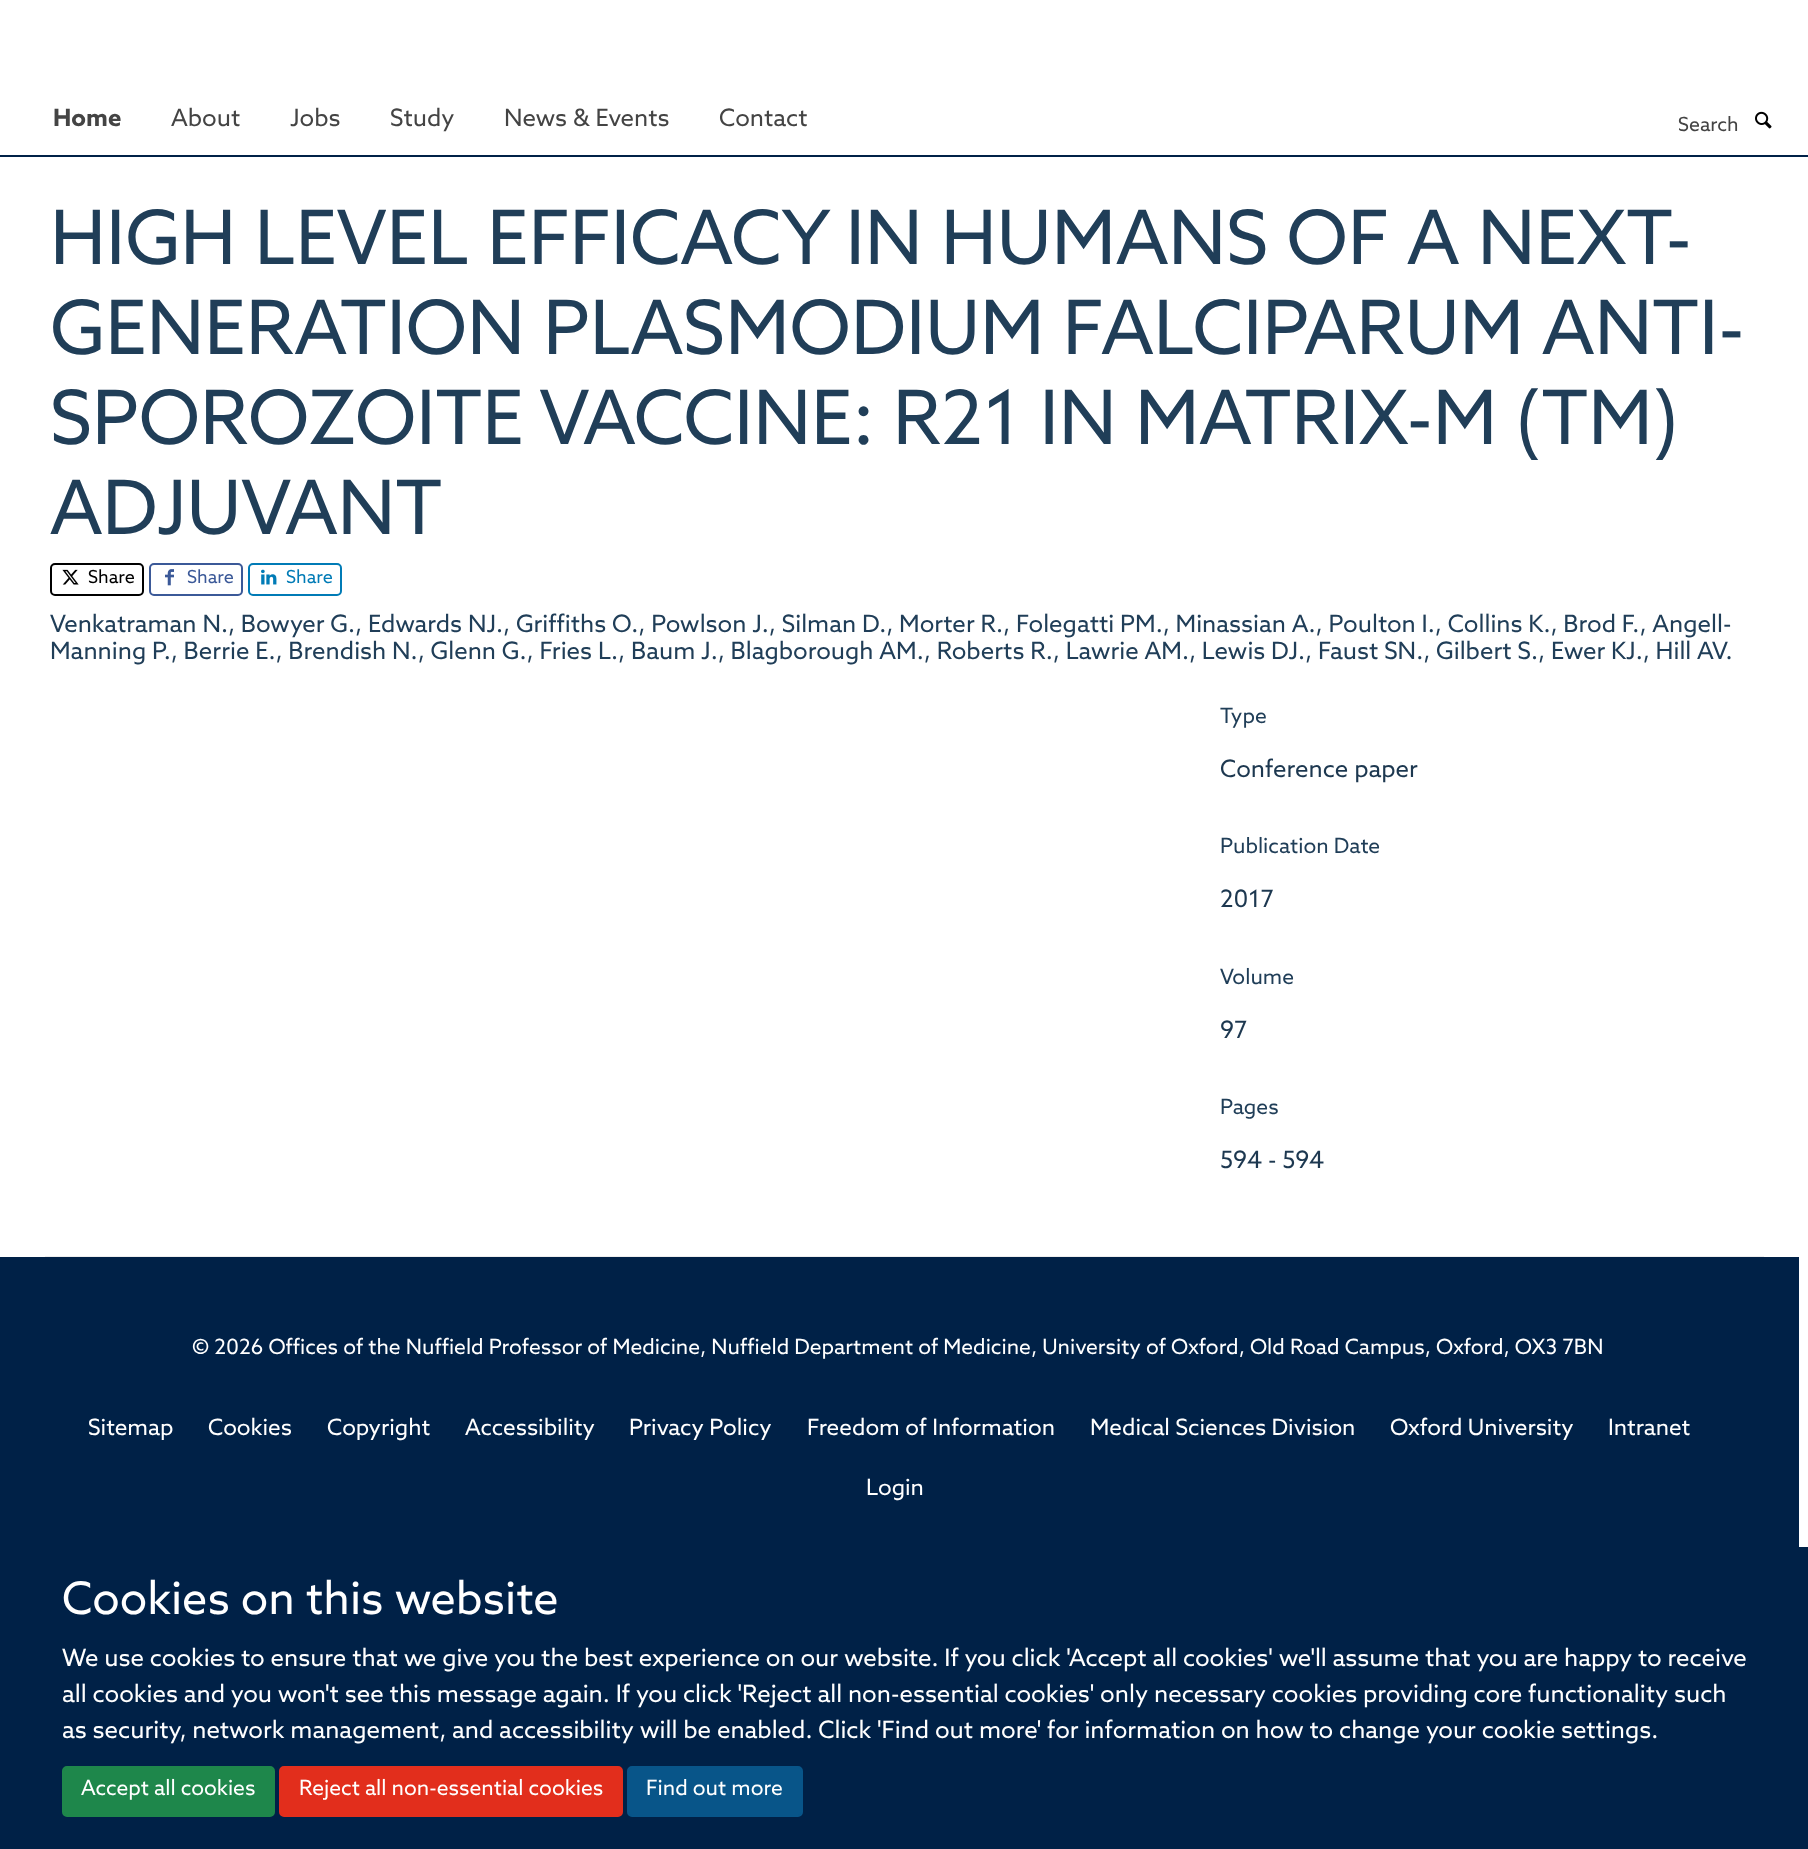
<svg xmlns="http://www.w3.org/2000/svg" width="1808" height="1849">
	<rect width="100%" height="100%" fill="#FFFFFF" />
	<rect x="0" y="155" width="1808" height="2" fill="#002147" />
	<text x="53" y="126" font-family="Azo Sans" font-size="24" font-weight="700" fill="#444444">Home</text>
	<g font-family="Azo Sans" font-size="24" fill="#444444">
		<text x="171" y="126">About</text>
		<text x="290" y="126">Jobs</text>
		<text x="390" y="126">Study</text>
		<text x="504" y="126">News &amp; Events</text>
		<text x="719" y="126">Contact</text>
	</g>
	<text x="1678" y="131" font-family="Azo Sans" font-size="19.5" fill="#444444">Search</text>
	<image x="1755" y="111" width="17" height="18" href="assets/img1.png" />
	<g font-family="Azo Sans" font-size="75" fill="#203E58">
		<text x="50" y="264">HIGH LEVEL EFFICACY IN HUMANS OF A NEXT-</text>
		<text x="50" y="354">GENERATION PLASMODIUM FALCIPARUM ANTI-</text>
		<text x="50" y="444">SPOROZOITE VACCINE: R21 IN MATRIX-M (TM)</text>
		<text x="50" y="534">ADJUVANT</text>
	</g>
	<rect x="51" y="564" width="92" height="31" rx="4" fill="none" stroke="#000000" stroke-width="2" />
	<image x="62" y="569" width="17" height="16" href="assets/img2.png" />
	<text x="88" y="583" font-family="Azo Sans" font-size="18" fill="#000000">Share</text>
	<rect x="150" y="564" width="92" height="31" rx="4" fill="none" stroke="#3B5998" stroke-width="2" />
	<image x="165" y="569" width="9" height="17" href="assets/img3.png" />
	<text x="187" y="583" font-family="Azo Sans" font-size="18" fill="#3B5998">Share</text>
	<rect x="249" y="564" width="92" height="31" rx="4" fill="none" stroke="#007BB6" stroke-width="2" />
	<image x="261" y="569" width="16" height="16" href="assets/img4.png" />
	<text x="286" y="583" font-family="Azo Sans" font-size="18" fill="#007BB6">Share</text>
	<g font-family="Azo Sans" font-size="24" fill="#203E58">
		<text x="50" y="632">Venkatraman N., Bowyer G., Edwards NJ., Griffiths O., Powlson J., Silman D., Morter R., Folegatti PM., Minassian A., Poulton I., Collins K., Brod F., Angell-</text>
		<text x="50" y="659">Manning P., Berrie E., Brendish N., Glenn G., Fries L., Baum J., Blagborough AM., Roberts R., Lawrie AM., Lewis DJ., Faust SN., Gilbert S., Ewer KJ., Hill AV.</text>
	</g>
	<text x="1220" y="723" font-family="Azo Sans" font-size="21" fill="#203E58">Type</text>
	<text x="1220" y="777" font-family="Azo Sans" font-size="24" fill="#1D3850">Conference paper</text>
	<text x="1220" y="853" font-family="Azo Sans" font-size="21" fill="#203E58">Publication Date</text>
	<text x="1220" y="907" font-family="Azo Sans" font-size="24" fill="#1D3850">2017</text>
	<text x="1220" y="984" font-family="Azo Sans" font-size="21" fill="#203E58">Volume</text>
	<text x="1220" y="1038" font-family="Azo Sans" font-size="24" fill="#1D3850">97</text>
	<text x="1220" y="1114" font-family="Azo Sans" font-size="21" fill="#203E58">Pages</text>
	<text x="1220" y="1168" font-family="Azo Sans" font-size="24" fill="#1D3850">594 - 594</text>
	<rect x="45" y="1256" width="1719" height="1" fill="#EEEEEE" />
	<rect x="0" y="1257" width="1799" height="290" fill="#002147" />
	<text x="192" y="1354" font-family="Azo Sans" font-size="21" fill="#FFFFFF">© 2026 Offices of the Nuffield Professor of Medicine, Nuffield Department of Medicine, University of Oxford, Old Road Campus, Oxford, OX3 7BN</text>
	<g font-family="Azo Sans" font-size="22.5" fill="#FFFFFF">
		<text x="88" y="1435">Sitemap</text>
		<text x="208" y="1435">Cookies</text>
		<text x="327" y="1435">Copyright</text>
		<text x="465" y="1435">Accessibility</text>
		<text x="629" y="1435">Privacy Policy</text>
		<text x="807" y="1435">Freedom of Information</text>
		<text x="1090" y="1435">Medical Sciences Division</text>
		<text x="1390" y="1435">Oxford University</text>
		<text x="1608" y="1435">Intranet</text>
		<text x="866" y="1495">Login</text>
	</g>
	<rect x="0" y="1547" width="1808" height="302" fill="#002147" />
	<text x="62" y="1614" font-family="Azo Sans" font-size="45" fill="#FFFFFF">Cookies on this website</text>
	<g font-family="Azo Sans" font-size="24" fill="#FFFFFF">
		<text x="62" y="1666">We use cookies to ensure that we give you the best experience on our website. If you click 'Accept all cookies' we'll assume that you are happy to receive</text>
		<text x="62" y="1702">all cookies and you won't see this message again. If you click 'Reject all non-essential cookies' only necessary cookies providing core functionality such</text>
		<text x="62" y="1738">as security, network management, and accessibility will be enabled. Click 'Find out more' for information on how to change your cookie settings.</text>
	</g>
	<rect x="63" y="1767" width="211" height="49" rx="4" fill="#1E874B" stroke="#1E874B" stroke-width="2" />
	<text x="81" y="1795" font-family="Azo Sans" font-size="21" fill="#FFFFFF">Accept all cookies</text>
	<rect x="280" y="1767" width="342" height="49" rx="4" fill="#E22E1C" stroke="#E22E1C" stroke-width="2" />
	<text x="299" y="1795" font-family="Azo Sans" font-size="21" fill="#FFFFFF">Reject all non-essential cookies</text>
	<rect x="628" y="1767" width="174" height="49" rx="4" fill="#085589" stroke="#085589" stroke-width="2" />
	<text x="646" y="1795" font-family="Azo Sans" font-size="21" fill="#FFFFFF">Find out more</text>
</svg>
